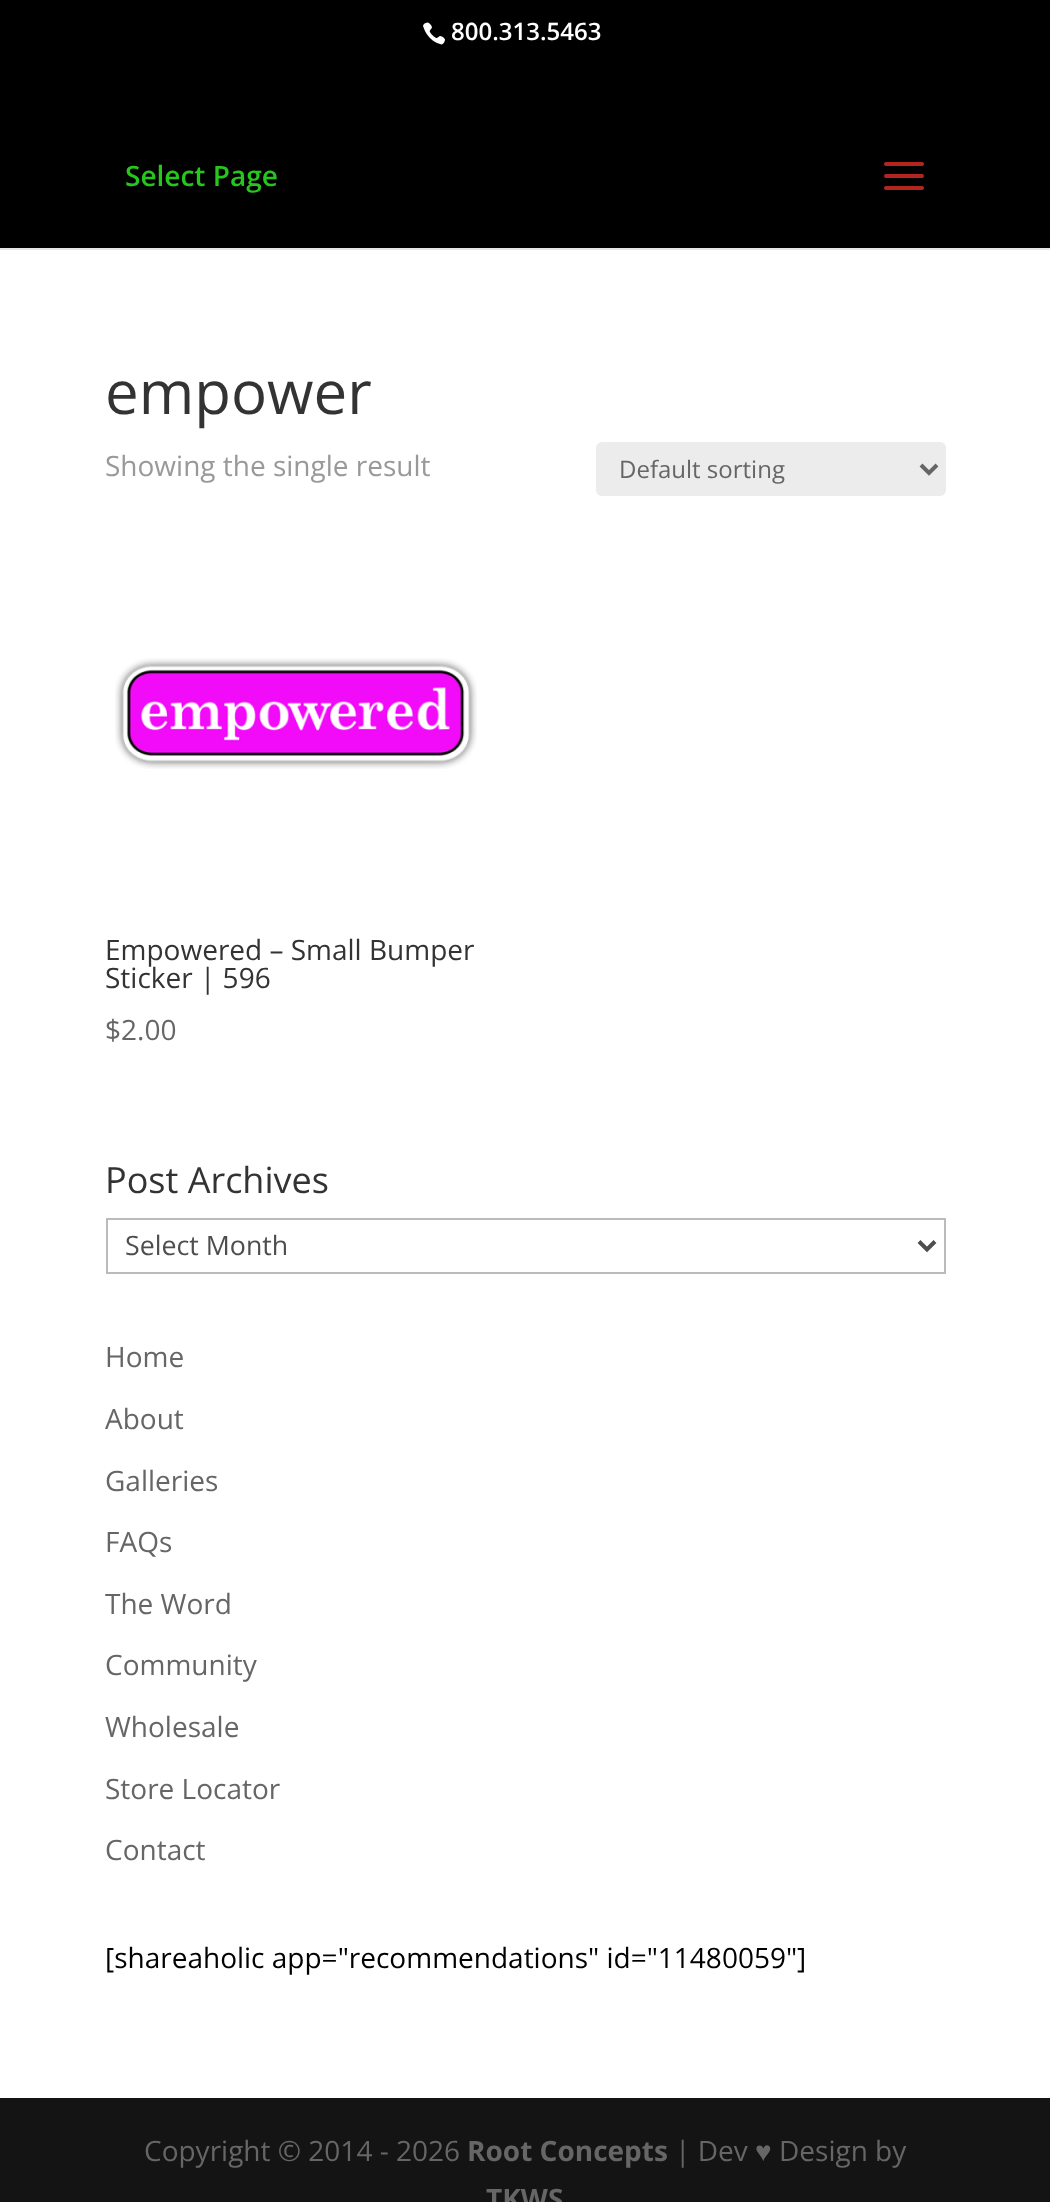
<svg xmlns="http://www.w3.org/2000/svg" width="1050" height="2202">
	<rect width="100%" height="100%" fill="#FFFFFF" />
	<rect x="0" y="0" width="1050" height="248" fill="#000000" />
	<image x="423" y="22" width="22" height="23" href="assets/img1.png" />
	<text x="451" y="40" font-family="Open Sans" font-size="24" font-weight="600" fill="#FFFFFF">800.313.5463</text>
	<rect x="0" y="248" width="1050" height="2" fill="#E6E6E6" />
	<text x="125" y="186" font-family="Open Sans" font-size="28" font-weight="600" fill="#26C61D">Select Page</text>
	<image x="884" y="162" width="40" height="28" href="assets/img2.png" />
	<text x="105" y="414" font-family="Open Sans" font-size="60" fill="#333333">empower</text>
	<text x="105" y="476" font-family="Open Sans" font-size="28" fill="#999999">Showing the single result</text>
	<rect x="596" y="442" width="350" height="54" rx="6" fill="#ECECEC" />
	<path d="M921 465L929 473L937 465" fill="none" stroke="#666666" stroke-width="4" />
	<text x="619" y="478" font-family="Open Sans" font-size="24" fill="#666666">Default sorting</text>
	<image x="115" y="658" width="362" height="111" href="assets/img3.png" />
	<g font-family="Open Sans" font-size="28" fill="#333333">
		<text x="105" y="960">Empowered – Small Bumper</text>
		<text x="105" y="988">Sticker | 596</text>
	</g>
	<text x="105" y="1040" font-family="Open Sans" font-size="28" fill="#666666">$2.00</text>
	<text x="105" y="1193" font-family="Open Sans" font-size="36" fill="#333333">Post Archives</text>
	<rect x="107" y="1219" width="838" height="54" fill="none" stroke="#BBBBBB" stroke-width="2" />
	<path d="M919 1241.5L927 1249.5L935 1241.5" fill="none" stroke="#4E4E4E" stroke-width="4" />
	<text x="125" y="1255" font-family="Open Sans" font-size="26.75" fill="#4E4E4E">Select Month</text>
	<g font-family="Open Sans" font-size="28" fill="#666666">
		<text x="105" y="1367">Home</text>
		<text x="105" y="1429">About</text>
		<text x="105" y="1491">Galleries</text>
		<text x="105" y="1552">FAQs</text>
		<text x="105" y="1614">The Word</text>
		<text x="105" y="1675">Community</text>
		<text x="105" y="1737">Wholesale</text>
		<text x="105" y="1799">Store Locator</text>
		<text x="105" y="1860">Contact</text>
	</g>
	<text x="105" y="1968" font-family="Open Sans" font-size="28" fill="#000000">[shareaholic app="recommendations" id="11480059"]</text>
	<rect x="0" y="2098" width="1050" height="104" fill="#141414" />
	<text x="144" y="2161" font-family="Open Sans" font-size="28" fill="#666666">Copyright © 2014 - 2026</text>
	<text x="467" y="2161" font-family="Open Sans" font-size="28" font-weight="700" fill="#666666">Root Concepts</text>
	<text x="675" y="2161" font-family="Open Sans" font-size="28" fill="#666666">| Dev</text>
	<text x="755" y="2161" font-family="Liberation Sans" font-size="28" fill="#666666">♥</text>
	<text x="779" y="2161" font-family="Open Sans" font-size="28" fill="#666666">Design by</text>
	<text x="486" y="2209" font-family="Open Sans" font-size="28" font-weight="700" fill="#666666">TKWS</text>
</svg>
